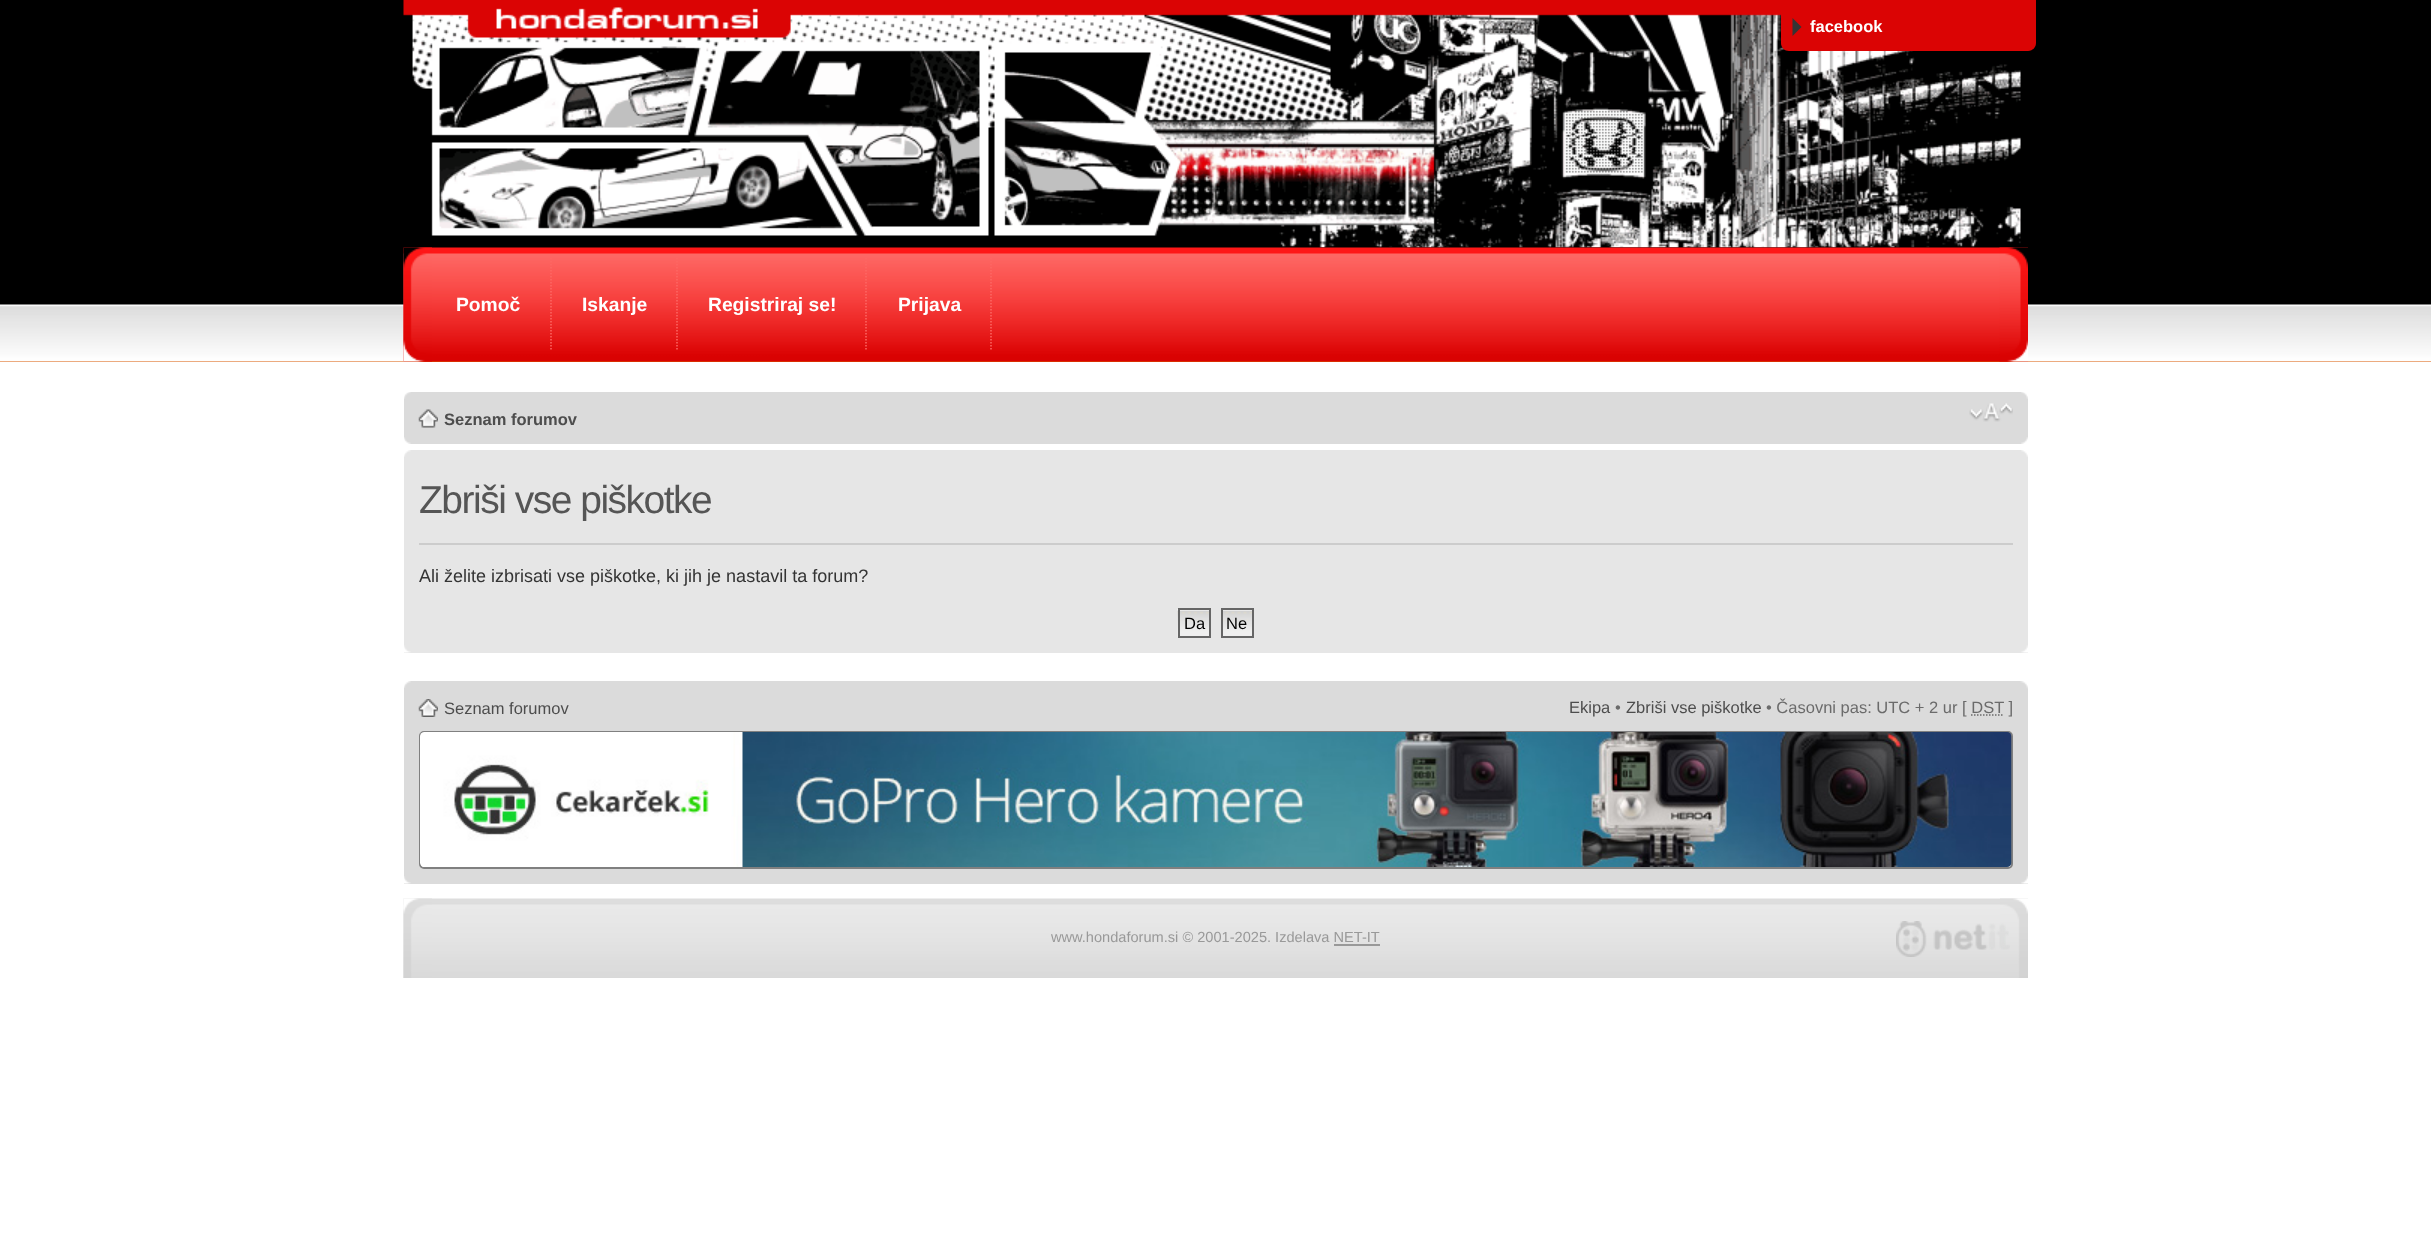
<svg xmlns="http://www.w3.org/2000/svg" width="2431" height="1234">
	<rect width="100%" height="100%" fill="#FFFFFF" />
	<rect x="0" y="0" width="2431" height="248" fill="#000000" />
	<image x="403" y="0" width="1625" height="248" href="assets/img1.png" />
	<path d="M1781 0H1904V51H1789C1784.5 51 1781 47.5 1781 43Z" fill="#DB0404" />
	<path d="M1792.5 36V18L1801.5 27Z" fill="#353535" />
	<text x="1810" y="32" font-family="Liberation Sans" font-size="16.5" font-weight="700" fill="#FFFFFF">facebook</text>
	<path d="M1901 0H2036V43C2036 47.5 2032.5 51 2028 51H1901Z" fill="#DB0404" />
	<rect x="0" y="361" width="2431" height="1" fill="#DA5800" />
	<image x="0" y="247" width="2431" height="115" href="assets/img2.png" />
	<rect x="404" y="361" width="1624" height="1" fill="#DA5800" />
	<image x="403" y="247" width="1625" height="115" href="assets/img3.png" />
	<image x="1999" y="247" width="29" height="115" href="assets/img4.png" />
	<image x="403" y="247" width="29" height="115" href="assets/img5.png" />
	<path d="M551 258V349.5" fill="none" stroke="#FD6864" stroke-width="1.5" stroke-dasharray="1.5 1.5" />
	<text x="456" y="311" font-family="Liberation Sans" font-size="19.25" font-weight="700" fill="#FFFFFF">Pomoč</text>
	<path d="M677 258V349.5" fill="none" stroke="#FD6864" stroke-width="1.5" stroke-dasharray="1.5 1.5" />
	<text x="582" y="311" font-family="Liberation Sans" font-size="19.25" font-weight="700" fill="#FFFFFF">Iskanje</text>
	<path d="M866 258V349.5" fill="none" stroke="#FD6864" stroke-width="1.5" stroke-dasharray="1.5 1.5" />
	<text x="708" y="311" font-family="Liberation Sans" font-size="19.25" font-weight="700" fill="#FFFFFF">Registriraj se!</text>
	<path d="M991 258V349.5" fill="none" stroke="#FD6864" stroke-width="1.5" stroke-dasharray="1.5 1.5" />
	<text x="898" y="311" font-family="Liberation Sans" font-size="19.25" font-weight="700" fill="#FFFFFF">Prijava</text>
	<rect x="404" y="392" width="1624" height="52" fill="#DBDBDB" />
	<image x="404" y="392" width="7" height="7" href="assets/img6.png" />
	<image x="2021" y="392" width="7" height="7" href="assets/img7.png" />
	<image x="418" y="409" width="20" height="19" href="assets/img8.png" />
	<text x="444" y="425" font-family="Liberation Sans" font-size="16.5" font-weight="700" fill="#4D4D4D">Seznam forumov</text>
	<image x="1969" y="403" width="44" height="19" href="assets/img9.png" />
	<image x="404" y="437" width="7" height="7" href="assets/img10.png" />
	<image x="2021" y="437" width="7" height="7" href="assets/img11.png" />
	<rect x="404" y="450" width="1624" height="203" fill="#E6E6E6" />
	<image x="404" y="450" width="7" height="7" href="assets/img12.png" />
	<image x="2021" y="450" width="7" height="7" href="assets/img13.png" />
	<rect x="419" y="543" width="1594" height="2" fill="#CCCCCC" />
	<text x="419" y="513" font-family="Liberation Sans" font-size="39" letter-spacing="-1.5" fill="#555555">Zbriši vse piškotke</text>
	<text x="419" y="582" font-family="Liberation Sans" font-size="18" fill="#343434">Ali želite izbrisati vse piškotke, ki jih je nastavil ta forum?</text>
	<image x="1177" y="609" width="32" height="29" href="assets/img14.png" />
	<rect x="1179" y="609" width="31" height="28" fill="none" stroke="#666666" stroke-width="2" />
	<text x="1184" y="629" font-family="Liberation Sans" font-size="16.5" fill="#000000">Da</text>
	<image x="1223" y="610" width="29" height="26" href="assets/img15.png" />
	<rect x="1222" y="609" width="31" height="28" fill="none" stroke="#666666" stroke-width="2" />
	<text x="1226" y="629" font-family="Liberation Sans" font-size="16.5" fill="#000000">Ne</text>
	<image x="404" y="645" width="7" height="8" href="assets/img16.png" />
	<image x="2021" y="645" width="7" height="8" href="assets/img17.png" />
	<rect x="404" y="681" width="1624" height="203" fill="#DBDBDB" />
	<image x="404" y="681" width="7" height="7" href="assets/img18.png" />
	<image x="2020" y="681" width="8" height="8" href="assets/img19.png" />
	<image x="418" y="699" width="20" height="18" href="assets/img20.png" />
	<g font-family="Liberation Sans" font-size="16.5" fill="#4D4D4D">
		<text x="444" y="714">Seznam forumov</text>
		<text x="1569" y="713">Ekipa</text>
	</g>
	<text x="1615" y="713" font-family="Liberation Sans" font-size="16.5" fill="#6B6B6B">•</text>
	<text x="1626" y="713" font-family="Liberation Sans" font-size="16.5" fill="#4D4D4D">Zbriši vse piškotke</text>
	<text x="1766" y="713" font-family="Liberation Sans" font-size="16.5" fill="#6B6B6B">• Časovni pas: UTC + 2 ur [ DST ]</text>
	<path d="M1971 715H2004" fill="none" stroke="#6B6B6B" stroke-width="1.5" stroke-dasharray="1.5 1.5" />
	<rect x="420" y="732" width="1592" height="136" rx="4" fill="#FFFFFF" stroke="#808080" stroke-width="2" />
	<image x="420" y="732" width="1592" height="135" href="assets/img21.png" />
	<image x="404" y="876" width="7" height="8" href="assets/img22.png" />
	<image x="2021" y="876" width="7" height="8" href="assets/img23.png" />
	<image x="403" y="898" width="1625" height="80" href="assets/img24.png" />
	<image x="403" y="898" width="29" height="80" href="assets/img25.png" />
	<image x="2000" y="898" width="28" height="80" href="assets/img26.png" />
	<text x="1051" y="942" font-family="Liberation Sans" font-size="14.6" fill="#999999">www.hondaforum.si © 2001-2025. Izdelava NET-IT</text>
	<rect x="1334" y="944" width="46" height="2" fill="#999999" />
	<image x="1896" y="921" width="114" height="36" href="assets/img27.png" />
</svg>
